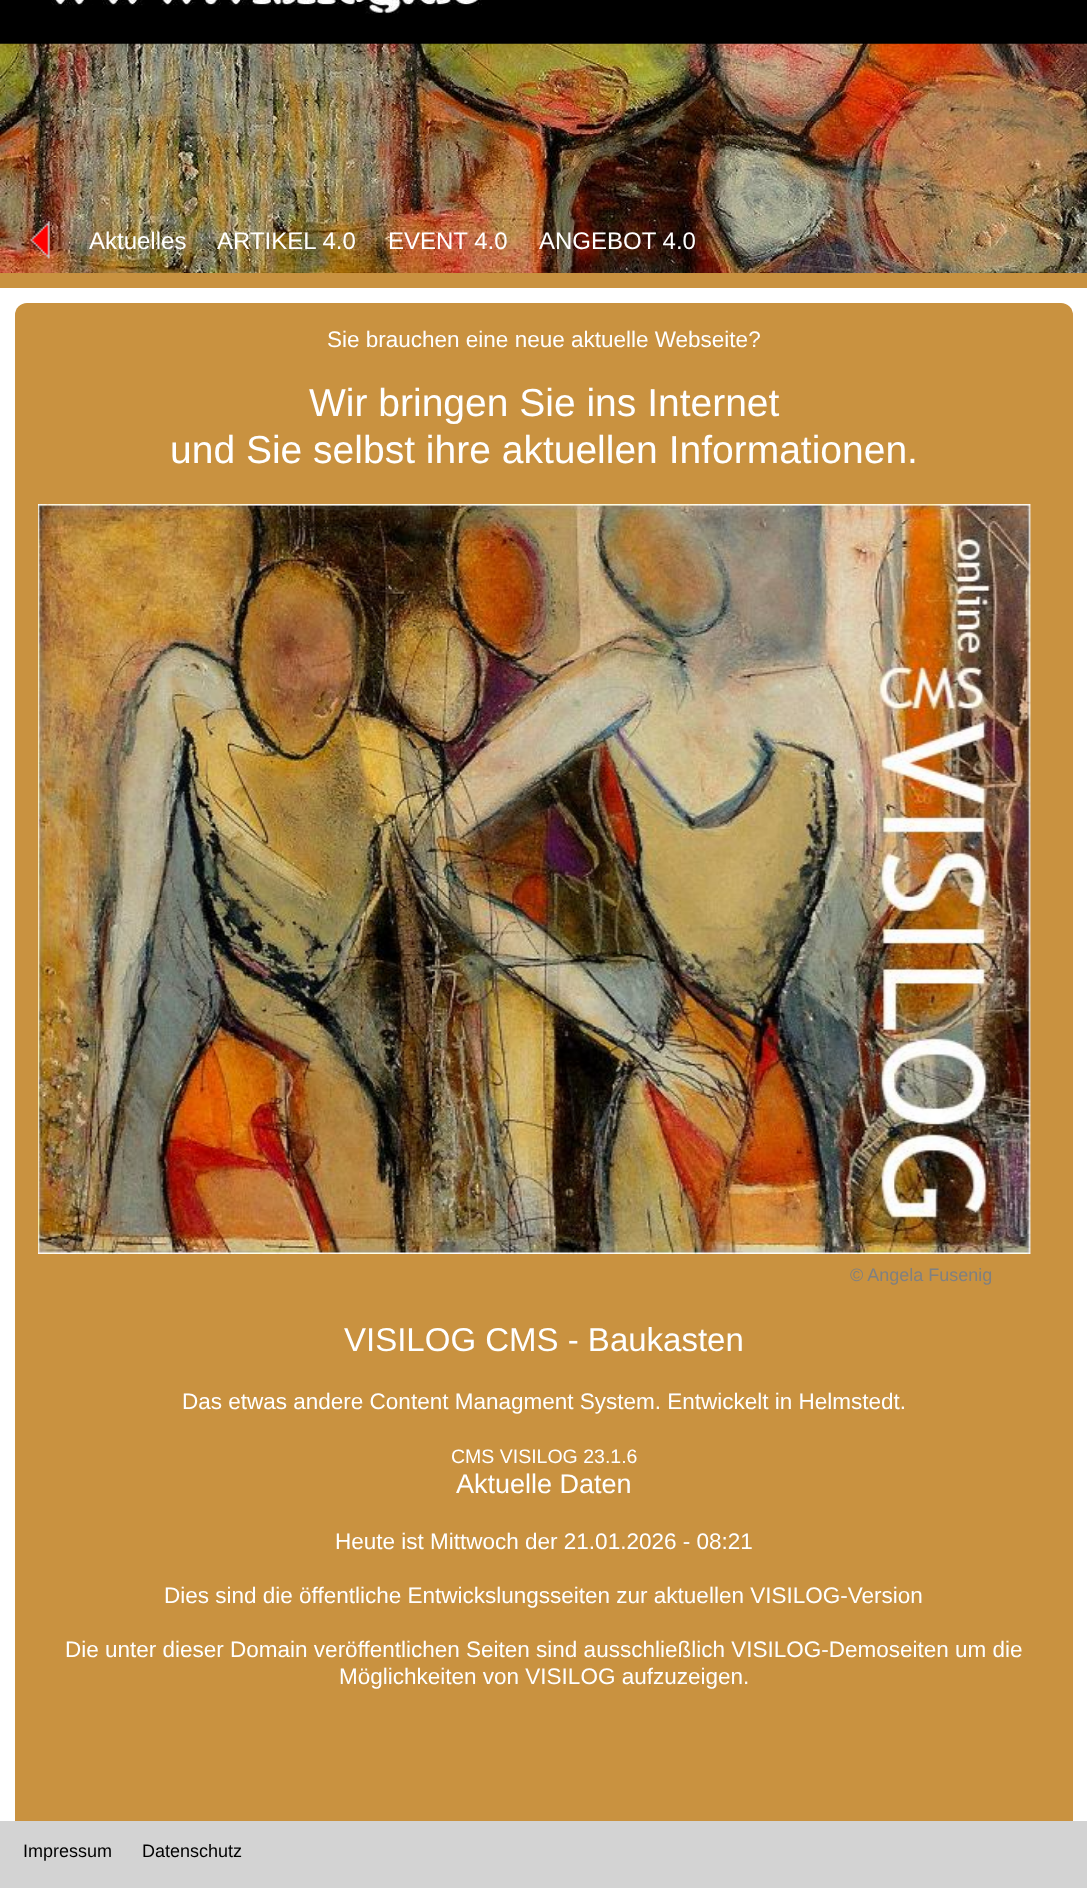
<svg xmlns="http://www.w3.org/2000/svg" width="1087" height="1888">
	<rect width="100%" height="100%" fill="#000000" />
	<image x="51" y="0" width="431" height="14" href="assets/img1.png" />
	<image x="0" y="43" width="1087" height="230" href="assets/img2.png" />
	<image x="30" y="221" width="20" height="38" href="assets/img3.png" />
	<g font-family="Liberation Sans" font-size="24" fill="#FFFFFF">
		<text x="89" y="249">Aktuelles</text>
		<text x="217" y="249">ARTIKEL 4.0</text>
		<text x="388" y="249">EVENT 4.0</text>
		<text x="539" y="249">ANGEBOT 4.0</text>
	</g>
	<rect x="0" y="273" width="1087" height="15" fill="#C99240" />
	<rect x="0" y="288" width="1087" height="1533" fill="#FFFFFF" />
	<rect x="15" y="303" width="1058" height="1572" rx="12" fill="#C99240" />
	<text x="327" y="347" font-family="Liberation Sans" font-size="22.5" fill="#FFFFFF">Sie brauchen eine neue aktuelle Webseite?</text>
	<g font-family="Liberation Sans" font-size="39" fill="#FFFFFF">
		<text x="309" y="416">Wir bringen Sie ins Internet</text>
		<text x="170" y="463">und Sie selbst ihre aktuellen Informationen.</text>
	</g>
	<image x="38" y="504" width="993" height="750" href="assets/img4.png" />
	<text x="850" y="1281" font-family="Liberation Sans" font-size="18" fill="#808080">© Angela Fusenig</text>
	<text x="344" y="1351" font-family="Liberation Sans" font-size="33" fill="#FFFFFF">VISILOG CMS - Baukasten</text>
	<text x="182" y="1409" font-family="Liberation Sans" font-size="22.5" fill="#FFFFFF">Das etwas andere Content Managment System. Entwickelt in Helmstedt.</text>
	<text x="451" y="1463" font-family="Liberation Sans" font-size="19.5" fill="#FFFFFF">CMS VISILOG 23.1.6</text>
	<text x="456" y="1493" font-family="Liberation Sans" font-size="27" fill="#FFFFFF">Aktuelle Daten</text>
	<g font-family="Liberation Sans" font-size="22.5" fill="#FFFFFF">
		<text x="335" y="1549">Heute ist Mittwoch der 21.01.2026 - 08:21</text>
		<text x="164" y="1603">Dies sind die öffentliche Entwickslungsseiten zur aktuellen VISILOG-Version</text>
		<text x="65" y="1657">Die unter dieser Domain veröffentlichen Seiten sind ausschließlich VISILOG-Demoseiten um die</text>
		<text x="339" y="1684">Möglichkeiten von VISILOG aufzuzeigen.</text>
	</g>
	<rect x="0" y="1821" width="1087" height="67" fill="#D3D3D3" />
	<g font-family="Liberation Sans" font-size="18" fill="#000000">
		<text x="23" y="1857">Impressum</text>
		<text x="142" y="1857">Datenschutz</text>
	</g>
</svg>
